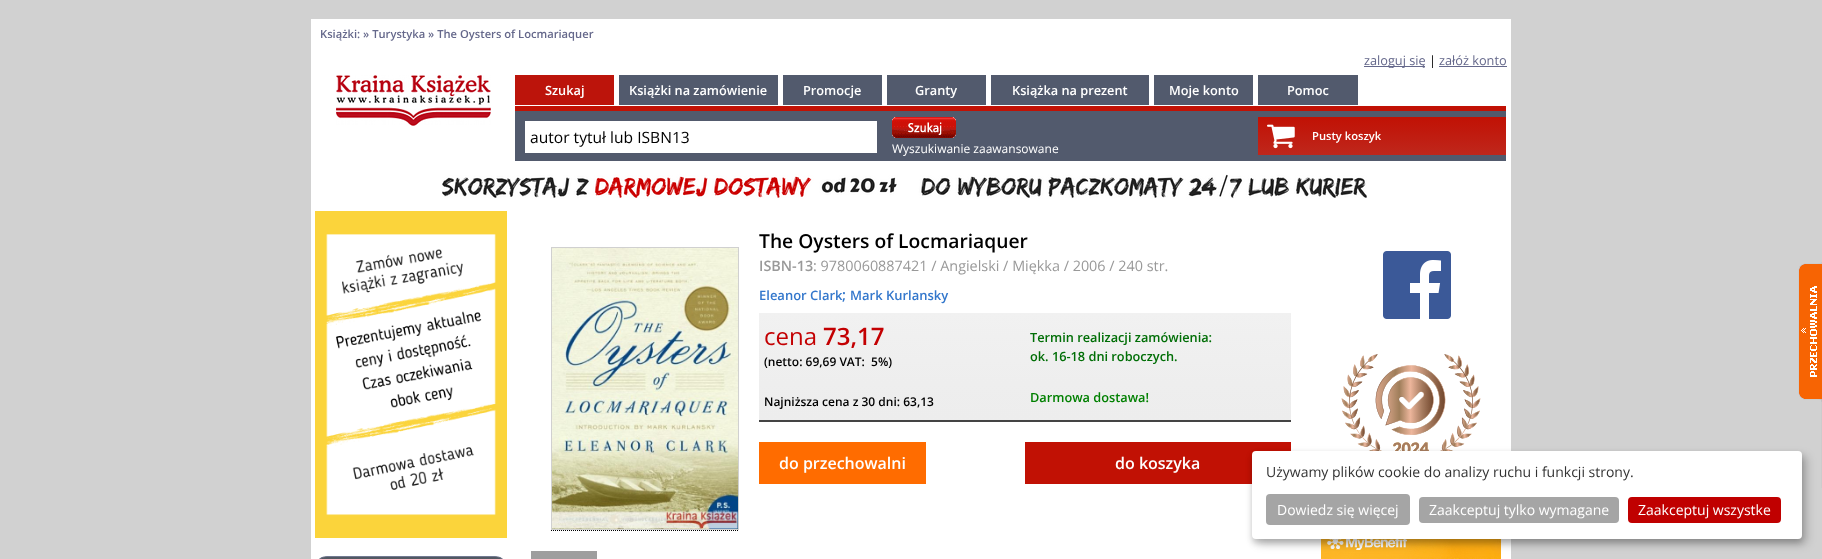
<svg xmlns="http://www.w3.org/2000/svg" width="1822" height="559">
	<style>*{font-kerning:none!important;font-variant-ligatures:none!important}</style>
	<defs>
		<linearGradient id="g1" gradientUnits="userSpaceOnUse" x1="1382" y1="117" x2="1382" y2="155"><stop offset="0" stop-color="#C11104" /><stop offset="1" stop-color="#BF271C" /></linearGradient>
		<clipPath id="clip1"><path d="M327 556H495C501.5 556 507 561.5 507 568V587H315V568C315 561.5 320.5 556 327 556Z" /></clipPath>
		<linearGradient id="g2" gradientUnits="userSpaceOnUse" x1="411" y1="557" x2="411" y2="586"><stop offset="0" stop-color="#505761" /><stop offset="1" stop-color="#727A91" /></linearGradient>
		<linearGradient id="g3" gradientUnits="userSpaceOnUse" x1="1025" y1="313" x2="1025" y2="420"><stop offset="0" stop-color="#F1F1F1" /><stop offset="0.66" stop-color="#EEEEEE" /><stop offset="1" stop-color="#EDEDED" /></linearGradient>
	</defs>
	<rect width="100%" height="100%" fill="#D1D1D1" />
	<rect x="311" y="19" width="1200" height="540" fill="#FFFFFF" />
	<text x="320" y="38" font-family="Open Sans" font-size="11.2" font-weight="600" fill="#65688B">Książki:  » Turystyka  » The Oysters of Locmariaquer</text>
	<rect x="1364" y="66" width="61" height="1" fill="#65688B" />
	<text x="1364" y="65" font-family="Open Sans" font-size="12.75" fill="#65688B">zaloguj się</text>
	<text x="1429" y="65" font-family="Open Sans" font-size="12.75" fill="#000000">|</text>
	<text x="1439" y="65" font-family="Open Sans" font-size="12.75" fill="#65688B">załóż konto</text>
	<rect x="1439" y="66" width="68" height="1" fill="#65688B" />
	<image x="336" y="75" width="155" height="51" href="assets/img1.png" />
	<rect x="515" y="106" width="991" height="5" fill="#C11104" />
	<rect x="515" y="75" width="99" height="30" fill="#BC140B" />
	<text x="545" y="95" font-family="Open Sans" font-size="12.75" font-weight="600" fill="#FFFFFF">Szukaj</text>
	<rect x="619" y="75" width="159" height="30" fill="#525A6D" />
	<text x="629" y="95" font-family="Open Sans" font-size="12.75" font-weight="600" fill="#FFFFFF">Książki na zamówienie</text>
	<rect x="783" y="75" width="99" height="30" fill="#525A6D" />
	<text x="803" y="95" font-family="Open Sans" font-size="12.75" font-weight="600" fill="#FFFFFF">Promocje</text>
	<rect x="887" y="75" width="99" height="30" fill="#525A6D" />
	<text x="915" y="95" font-family="Open Sans" font-size="12.75" font-weight="600" fill="#FFFFFF">Granty</text>
	<rect x="991" y="75" width="158" height="30" fill="#525A6D" />
	<text x="1012" y="95" font-family="Open Sans" font-size="12.75" font-weight="600" fill="#FFFFFF">Książka na prezent</text>
	<rect x="1154" y="75" width="99" height="30" fill="#525A6D" />
	<text x="1169" y="95" font-family="Open Sans" font-size="12.75" font-weight="600" fill="#FFFFFF">Moje konto</text>
	<rect x="1258" y="75" width="100" height="30" fill="#525A6D" />
	<text x="1287" y="95" font-family="Open Sans" font-size="12.75" font-weight="600" fill="#FFFFFF">Pomoc</text>
	<rect x="515" y="111" width="991" height="50" fill="#525A6D" />
	<rect x="525" y="121" width="352" height="32" fill="#FFFFFF" />
	<text x="530" y="143" font-family="Open Sans" font-size="15.6" fill="#000000">autor tytuł lub ISBN13</text>
	<image x="892" y="117" width="64" height="21" href="assets/img2.png" />
	<text x="892" y="153" font-family="Open Sans" font-size="12" fill="#FFFFFF">Wyszukiwanie zaawansowane</text>
	<rect x="1258" y="117" width="248" height="38" fill="url(#g1)" />
	<image x="1267" y="124" width="28" height="25" href="assets/img3.png" />
	<text x="1312" y="140" font-family="Open Sans" font-size="11.2" font-weight="600" fill="#FFFFFF">Pusty koszyk</text>
	<image x="442" y="174" width="925" height="25" href="assets/img4.png" />
	<image x="315" y="211" width="192" height="327" href="assets/img5.png" />
	<g clip-path="url(#clip1)">
		<rect x="315" y="557" width="192" height="2" fill="url(#g2)" />
	</g>
	<path d="M327 556.5H495C501.5 556.5 506.5 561.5 506.5 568V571.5H315.5V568C315.5 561.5 320.5 556.5 327 556.5Z" fill="none" stroke="#727A91" />
	<path d="M551 530.5H739" fill="none" stroke="#000000" stroke-dasharray="1 1" />
	<rect x="551.5" y="247.5" width="187" height="282" fill="none" stroke="#D0D0D0" />
	<image x="552" y="248" width="186" height="281" href="assets/img6.png" />
	<text x="759" y="248" font-family="Open Sans" font-size="19.25" font-weight="600" fill="#000000">The Oysters of Locmariaquer</text>
	<text x="759" y="271" font-family="Open Sans" font-size="14.4" font-weight="600" fill="#999999">ISBN-13</text>
	<text x="813" y="271" font-family="Open Sans" font-size="14.4" fill="#999999">: 9780060887421 / Angielski / Miękka / 2006 / 240 str.</text>
	<text x="759" y="300" font-family="Open Sans" font-size="13" font-weight="600" fill="#3377CC">Eleanor Clark</text>
	<text x="842" y="300" font-family="Open Sans" font-size="14.4" font-weight="600" fill="#3377CC">;</text>
	<text x="850" y="300" font-family="Open Sans" font-size="13" font-weight="600" fill="#3377CC">Mark Kurlansky</text>
	<rect x="759" y="313" width="532" height="107" fill="url(#g3)" />
	<rect x="759" y="420" width="532" height="2" fill="#444444" />
	<text x="764" y="345" font-family="Open Sans" font-size="24" fill="#C30002">cena</text>
	<text x="823" y="345" font-family="Open Sans" font-size="24" font-weight="600" fill="#C30002">73,17</text>
	<g font-family="Open Sans" font-size="12" font-weight="600" fill="#000000">
		<text x="764" y="366" xml:space="preserve">(netto: 69,69 VAT:  5%)</text>
		<text x="764" y="406">Najniższa cena z 30 dni: 63,13</text>
	</g>
	<g font-family="Open Sans" font-size="12.75" font-weight="600" fill="#006E06">
		<text x="1030" y="342">Termin realizacji zamówienia:</text>
		<text x="1030" y="361">ok. 16-18 dni roboczych.</text>
	</g>
	<text x="1030" y="402" font-family="Open Sans" font-size="12.75" font-weight="600" fill="#008000">Darmowa dostawa!</text>
	<rect x="759" y="442" width="167" height="42" fill="#FF6C00" />
	<text x="779" y="469" font-family="Open Sans" font-size="16" font-weight="600" fill="#FFFFFF">do przechowalni</text>
	<rect x="1025" y="442" width="266" height="42" fill="#C11104" />
	<text x="1115" y="469" font-family="Open Sans" font-size="16" font-weight="600" fill="#FFFFFF">do koszyka</text>
	<rect x="531" y="551" width="66" height="8" fill="#9E9E9E" />
	<image x="1383" y="251" width="68" height="68" href="assets/img7.png" />
	<image x="1341" y="354" width="140" height="97" href="assets/img8.png" />
	<image x="1321" y="539" width="180" height="20" href="assets/img9.png" />
	<image x="1821" y="399" width="1" height="89" href="assets/img10.png" />
	<image x="1798" y="262" width="24" height="140" href="assets/img11.png" />
	<rect x="1257" y="456" width="550" height="88" rx="4" fill="#000000" fill-opacity="0.19" filter="blur(5px)" />
	<rect x="1252" y="455" width="550" height="88" rx="4" fill="#000000" fill-opacity="0.2" filter="blur(3px)" />
	<rect x="1252" y="451" width="550" height="88" rx="4" fill="#FFFFFF" />
	<text x="1266" y="477" font-family="Open Sans" font-size="14" fill="#333333">Używamy plików cookie do analizy ruchu i funkcji strony.</text>
	<rect x="1266" y="494" width="144" height="31" rx="4" fill="#A5A5A5" />
	<text x="1277" y="515" font-family="Open Sans" font-size="14" fill="#FFFFFF">Dowiedz się więcej</text>
	<rect x="1419" y="497" width="200" height="26" rx="4" fill="#A5A5A5" />
	<text x="1429" y="515" font-family="Open Sans" font-size="14" fill="#FFFFFF">Zaakceptuj tylko wymagane</text>
	<rect x="1628" y="497" width="153" height="26" rx="4" fill="#C00000" />
	<text x="1638" y="515" font-family="Open Sans" font-size="14" fill="#FFFFFF">Zaakceptuj wszystke</text>
</svg>
